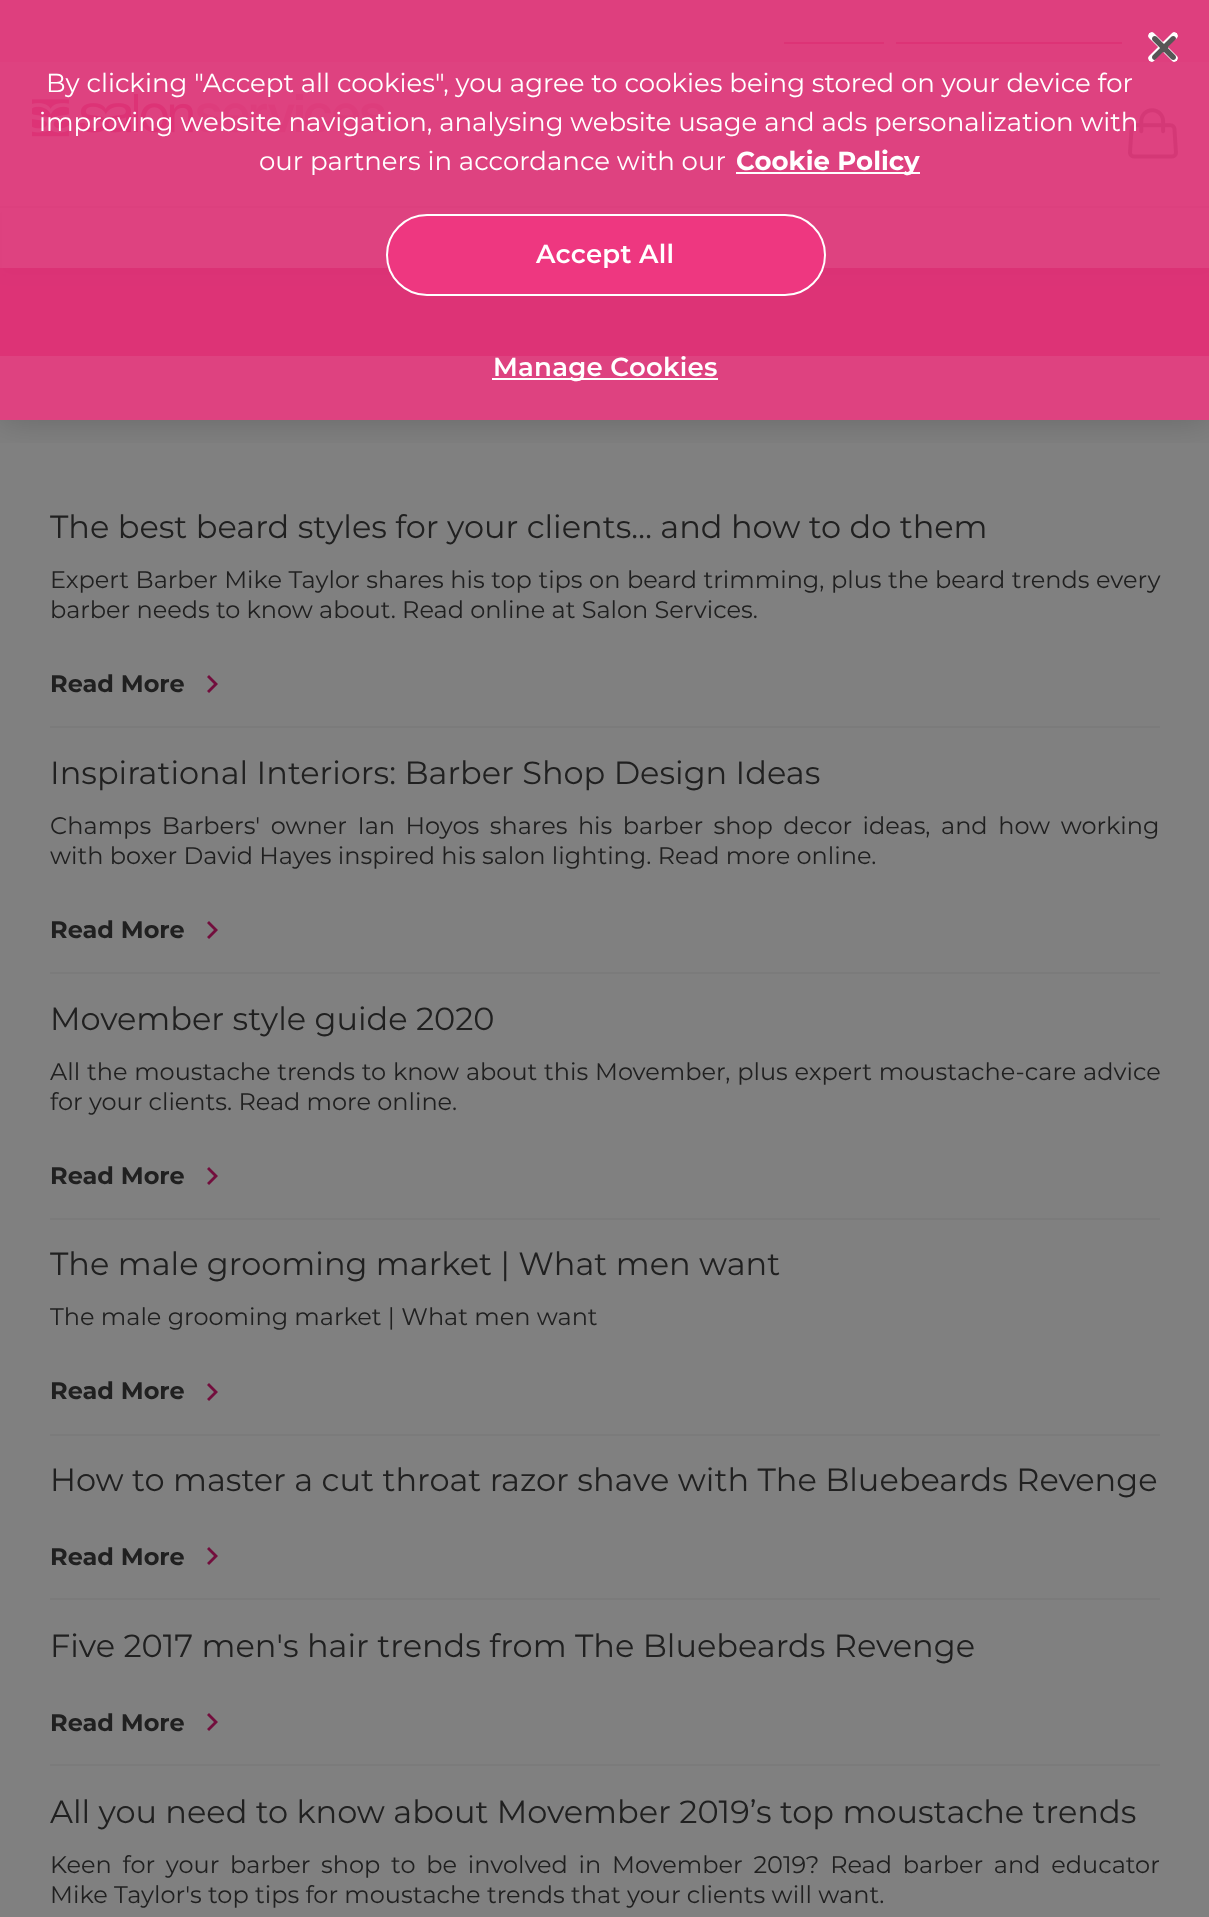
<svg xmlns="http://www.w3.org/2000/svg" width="1209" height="1917">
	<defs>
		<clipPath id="clip1"><path d="M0 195H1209V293H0ZM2 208H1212V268H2Z" clip-rule="evenodd" /></clipPath>
		<clipPath id="clip2"><rect x="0" y="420" width="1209" height="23" /></clipPath>
	</defs>
	<rect width="100%" height="100%" fill="#808080" />
	<rect x="0" y="0" width="1209" height="62" fill="#7E6C73" />
	<rect x="784" y="42" width="100" height="2" fill="#771C40" />
	<rect x="896" y="42" width="226" height="2" fill="#771C40" />
	<rect x="0" y="268" width="1209" height="88" fill="#771C40" />
	<g clip-path="url(#clip1)">
		<rect x="2" y="214" width="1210" height="60" fill="#100F0F" fill-opacity="0.16" filter="blur(6px)" />
	</g>
	<rect x="0" y="206" width="1209" height="2" fill="#767676" />
	<image x="32" y="94" width="354" height="43" href="assets/img1.png" />
	<image x="1128" y="108" width="50" height="51" href="assets/img2.png" />
	<g clip-path="url(#clip2)">
		<rect x="0" y="0" width="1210" height="420" fill="#000000" fill-opacity="0.2" filter="blur(18px)" />
	</g>
	<rect x="0" y="0" width="1209" height="420" fill="#EE3780" fill-opacity="0.85" />
	<image x="1148" y="32" width="30" height="30" href="assets/img3.png" />
	<g font-family="Montserrat" font-size="26" fill="#FFFFFF">
		<text x="46" y="92">By clicking "Accept all cookies", you agree to cookies being stored on your device for</text>
		<text x="39" y="131">improving website navigation, analysing website usage and ads personalization with</text>
		<text x="259" y="170">our partners in accordance with our</text>
	</g>
	<rect x="736" y="172" width="184" height="2" fill="#FFFFFF" />
	<text x="736" y="170" font-family="Montserrat" font-size="26" font-weight="700" fill="#FFFFFF">Cookie Policy</text>
	<rect x="387" y="215" width="438" height="80" rx="40" fill="#EE3780" stroke="#FFFFFF" stroke-width="2" />
	<text x="536" y="263" font-family="Montserrat" font-size="26" font-weight="600" letter-spacing="0.25" fill="#FFFFFF">Accept All</text>
	<rect x="492" y="378" width="226" height="2" fill="#FFFFFF" />
	<text x="493" y="376" font-family="Montserrat" font-size="26" font-weight="600" letter-spacing="0.25" fill="#FFFFFF">Manage Cookies</text>
	<rect x="50" y="726" width="1110" height="2" fill="#7B7B7B" />
	<text x="50" y="538" font-family="Montserrat" font-size="32" fill="#202020">The best beard styles for your clients… and how to do them</text>
	<g font-family="Montserrat" font-size="24" fill="#202020">
		<text x="50" y="588" word-spacing="0.25">Expert Barber Mike Taylor shares his top tips on beard trimming, plus the beard trends every</text>
		<text x="50" y="618">barber needs to know about. Read online at Salon Services.</text>
	</g>
	<text x="50" y="692" font-family="Montserrat" font-size="24" font-weight="700" fill="#202020">Read More</text>
	<path d="M209 675L207 677L214 684L207 691L209 693L218 684Z" fill="#720E3D" />
	<rect x="50" y="972" width="1110" height="2" fill="#7B7B7B" />
	<text x="50" y="784" font-family="Montserrat" font-size="32" fill="#202020">Inspirational Interiors: Barber Shop Design Ideas</text>
	<g font-family="Montserrat" font-size="24" fill="#202020">
		<text x="50" y="834" word-spacing="4.25">Champs Barbers' owner Ian Hoyos shares his barber shop decor ideas, and how working</text>
		<text x="50" y="864">with boxer David Hayes inspired his salon lighting. Read more online.</text>
	</g>
	<text x="50" y="938" font-family="Montserrat" font-size="24" font-weight="700" fill="#202020">Read More</text>
	<path d="M209 921L207 923L214 930L207 937L209 939L218 930Z" fill="#720E3D" />
	<rect x="50" y="1218" width="1110" height="2" fill="#7B7B7B" />
	<text x="50" y="1030" font-family="Montserrat" font-size="32" fill="#202020">Movember style guide 2020</text>
	<g font-family="Montserrat" font-size="24" fill="#202020">
		<text x="50" y="1080" word-spacing="0.5">All the moustache trends to know about this Movember, plus expert moustache-care advice</text>
		<text x="50" y="1110">for your clients. Read more online.</text>
	</g>
	<text x="50" y="1184" font-family="Montserrat" font-size="24" font-weight="700" fill="#202020">Read More</text>
	<path d="M209 1167L207 1169L214 1176L207 1183L209 1185L218 1176Z" fill="#720E3D" />
	<rect x="50" y="1434" width="1110" height="2" fill="#7B7B7B" />
	<text x="50" y="1275" font-family="Montserrat" font-size="32" fill="#202020">The male grooming market | What men want</text>
	<text x="50" y="1325" font-family="Montserrat" font-size="24" fill="#202020">The male grooming market | What men want</text>
	<text x="50" y="1399" font-family="Montserrat" font-size="24" font-weight="700" fill="#202020">Read More</text>
	<path d="M209 1383L207 1385L214 1392L207 1399L209 1401L218 1392Z" fill="#720E3D" />
	<rect x="50" y="1598" width="1110" height="2" fill="#7B7B7B" />
	<text x="50" y="1491" font-family="Montserrat" font-size="32" fill="#202020">How to master a cut throat razor shave with The Bluebeards Revenge</text>
	<text x="50" y="1565" font-family="Montserrat" font-size="24" font-weight="700" fill="#202020">Read More</text>
	<path d="M209 1547L207 1549L214 1556L207 1563L209 1565L218 1556Z" fill="#720E3D" />
	<rect x="50" y="1764" width="1110" height="2" fill="#7B7B7B" />
	<text x="50" y="1657" font-family="Montserrat" font-size="32" fill="#202020">Five 2017 men's hair trends from The Bluebeards Revenge</text>
	<text x="50" y="1731" font-family="Montserrat" font-size="24" font-weight="700" fill="#202020">Read More</text>
	<path d="M209 1713L207 1715L214 1722L207 1729L209 1731L218 1722Z" fill="#720E3D" />
	<text x="50" y="1823" font-family="Montserrat" font-size="32" fill="#202020">All you need to know about Movember 2019’s top moustache trends</text>
	<g font-family="Montserrat" font-size="24" fill="#202020">
		<text x="50" y="1873" word-spacing="4.5">Keen for your barber shop to be involved in Movember 2019? Read barber and educator</text>
		<text x="50" y="1903">Mike Taylor's top tips for moustache trends that your clients will want.</text>
	</g>
</svg>
